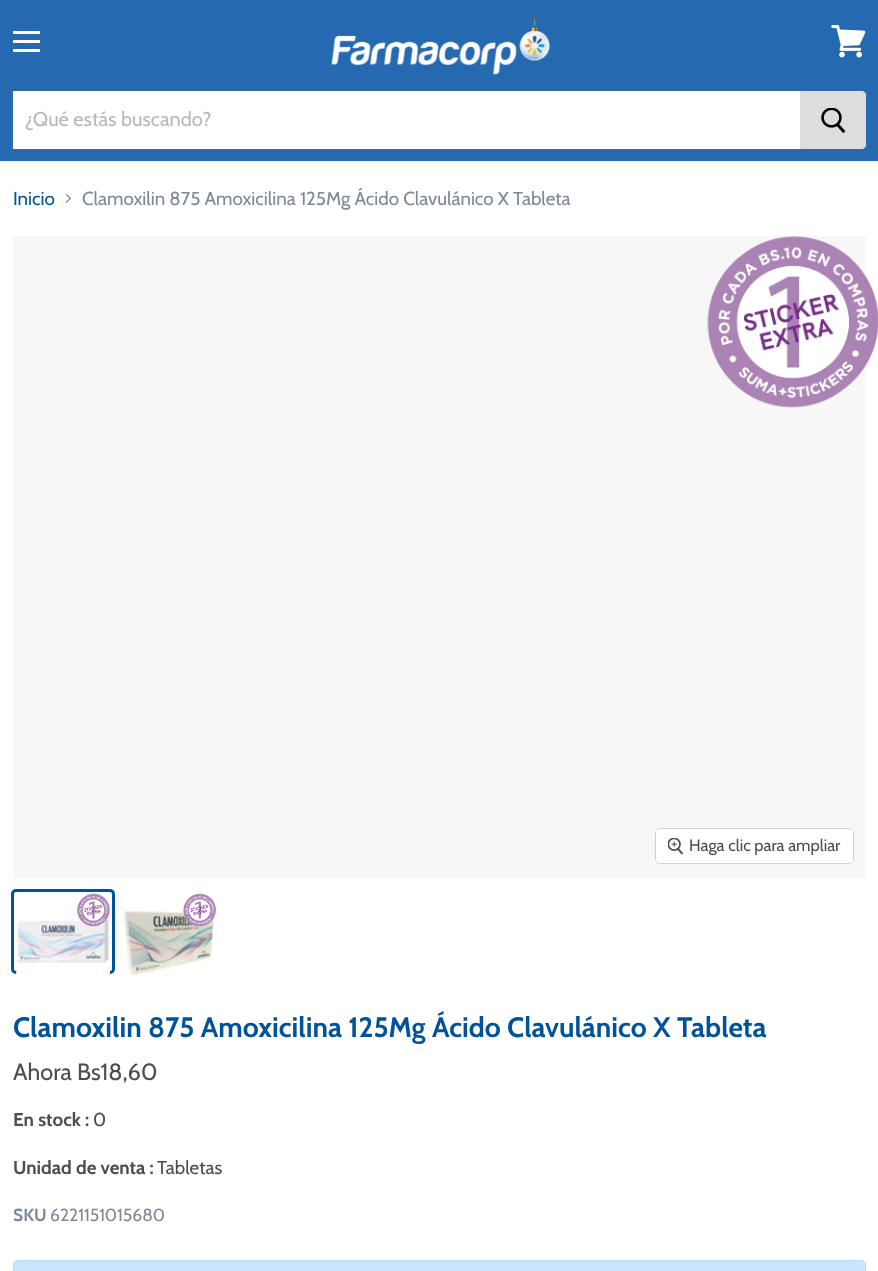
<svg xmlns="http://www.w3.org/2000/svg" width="878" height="1271">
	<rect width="100%" height="100%" fill="#FFFFFF" />
	<rect x="0" y="0" width="878" height="161" fill="#2569B0" />
	<rect x="13" y="31" width="27" height="3" fill="#FFFFFF" />
	<rect x="13" y="40" width="27" height="3" fill="#FFFFFF" />
	<rect x="13" y="49" width="27" height="3" fill="#FFFFFF" />
	<image x="831" y="25" width="35" height="33" href="assets/img1.png" />
	<image x="331" y="12" width="220" height="63" href="assets/img2.png" />
	<rect x="11.5" y="90.5" width="856" height="59" rx="4.5" fill="none" stroke="#7F7F7F" stroke-opacity="0.2" />
	<rect x="13" y="91" width="787" height="58" fill="#FFFFFF" />
	<text x="25" y="126" font-family="Cabin" font-size="20" fill="#B8B8B8">¿Qué estás buscando?</text>
	<path d="M800.5 91.5H862C864 91.5 865.5 93 865.5 95V145C865.5 147 864 148.5 862 148.5H800.5Z" fill="#DDDDDD" stroke="#DDDDDD" />
	<image x="821" y="108" width="25" height="26" href="assets/img3.png" />
	<text x="13" y="205" font-family="Cabin" font-size="18.75" fill="#00539B">Inicio</text>
	<image x="65" y="194" width="6" height="9" href="assets/img4.png" />
	<text x="82" y="205" font-family="Cabin" font-size="18.75" fill="#7C8997">Clamoxilin 875 Amoxicilina 125Mg Ácido Clavulánico X Tableta</text>
	<rect x="13" y="236" width="853" height="642" fill="#F7F7F7" />
	<image x="707" y="236" width="171" height="172" href="assets/img5.png" />
	<rect x="655.5" y="828.5" width="198" height="35" rx="4.5" fill="none" stroke="#D2D2D2" />
	<rect x="656" y="829" width="197" height="34" rx="4" fill="#FFFFFF" fill-opacity="0.9" />
	<image x="668" y="838" width="16" height="17" href="assets/img6.png" />
	<text x="689" y="851" font-family="Cabin" font-size="16.5" fill="#4D4D4D">Haga clic para ampliar</text>
	<rect x="12.5" y="890.5" width="101" height="82" rx="3.5" fill="none" stroke="#00539B" stroke-width="3" />
	<image x="16" y="918" width="94" height="56" href="assets/img8.png" />
	<image x="77" y="893" width="33" height="34" href="assets/img7.png" />
	<image x="122" y="911" width="93" height="64" href="assets/img10.png" />
	<image x="183" y="893" width="33" height="34" href="assets/img9.png" />
	<text x="13" y="1037" font-family="Cabin" font-size="28.1" font-weight="700" fill="#00539B">Clamoxilin 875 Amoxicilina 125Mg Ácido Clavulánico X Tableta</text>
	<text x="13" y="1080" font-family="Cabin" font-size="23.5" fill="#4D4D4D">Ahora Bs18,60</text>
	<text x="13" y="1126" font-family="Cabin" font-size="18.75" font-weight="700" fill="#4D4D4D">En stock :</text>
	<text x="93" y="1126" font-family="Cabin" font-size="18.75" fill="#4D4D4D">0</text>
	<text x="13" y="1174" font-family="Cabin" font-size="18.75" font-weight="700" fill="#4D4D4D">Unidad de venta :</text>
	<text x="157" y="1174" font-family="Cabin" font-size="18.75" fill="#4D4D4D">Tabletas</text>
	<text x="13" y="1221" font-family="Cabin" font-size="17.5" font-weight="700" fill="#7C8997">SKU</text>
	<text x="50" y="1221" font-family="Cabin" font-size="17.5" fill="#7C8997">6221151015680</text>
	<rect x="13.5" y="1260.5" width="852" height="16" rx="4.5" fill="#CCE5FF" stroke="#B8DAFF" />
</svg>
